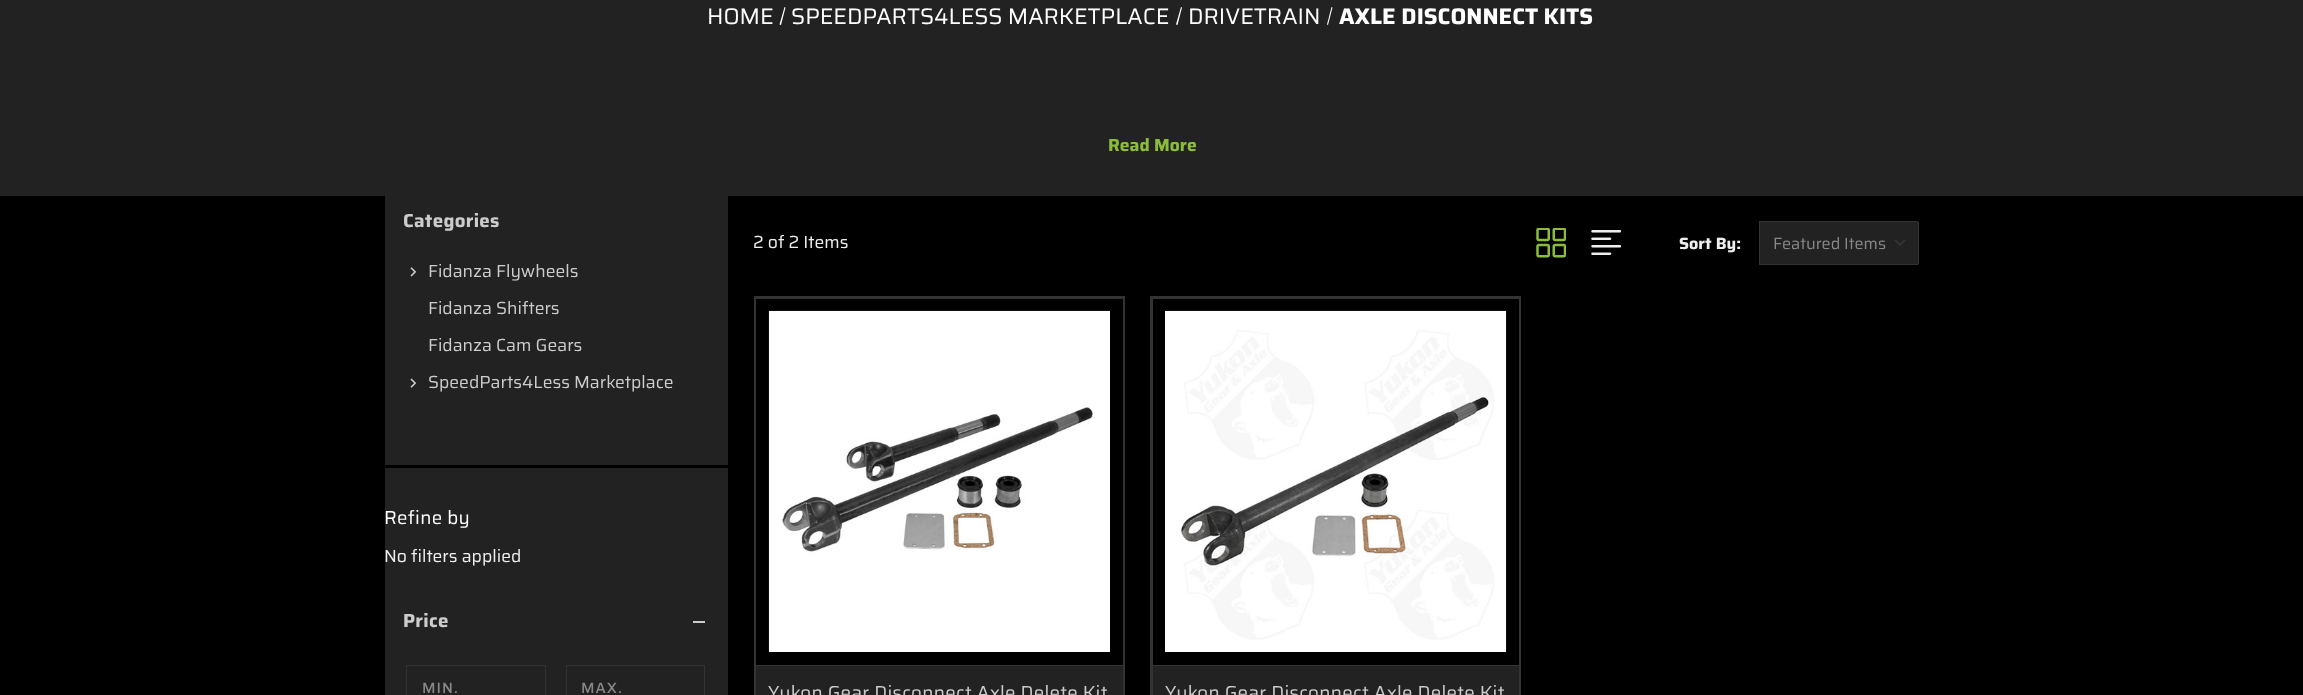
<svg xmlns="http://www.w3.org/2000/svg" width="2303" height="695">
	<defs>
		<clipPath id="clip1"><rect x="1679" y="221" width="242" height="44" rx="5" /></clipPath>
	</defs>
	<rect width="100%" height="100%" fill="#000000" />
	<rect x="0" y="0" width="2303" height="196" fill="#222222" />
	<text x="707" y="24" font-family="Saira" font-size="22.5" fill="#FFFFFF">HOME</text>
	<path d="M784.5 7L785.5 7.5L781 25L779.5 24.5Z" fill="#FFFFFF" />
	<text x="791" y="24" font-family="Saira" font-size="22.5" fill="#FFFFFF">SPEEDPARTS4LESS MARKETPLACE</text>
	<path d="M1181 7L1182 7.5L1177.5 25L1176 24.5Z" fill="#FFFFFF" />
	<text x="1188" y="24" font-family="Saira" font-size="22.5" fill="#FFFFFF">DRIVETRAIN</text>
	<path d="M1331.5 7L1332.5 7.5L1328 25L1327 24.5Z" fill="#FFFFFF" />
	<text x="1339" y="24" font-family="Saira" font-size="22.5" font-weight="700" fill="#FFFFFF">AXLE DISCONNECT KITS</text>
	<text x="1108" y="151" font-family="Saira" font-size="17.5" font-weight="700" fill="#8BBD3A">Read More</text>
	<rect x="385" y="196" width="343" height="499" fill="#222222" />
	<rect x="385" y="465" width="343" height="3" fill="#000000" />
	<text x="403" y="227" font-family="Saira" font-size="18.75" font-weight="700" letter-spacing="0.3" fill="#CCCCCC">Categories</text>
	<image x="410" y="267" width="7" height="10" href="assets/img1.png" />
	<g font-family="Saira" font-size="17.5" fill="#CCCCCC">
		<text x="428" y="277">Fidanza Flywheels</text>
		<text x="428" y="314">Fidanza Shifters</text>
		<text x="428" y="351">Fidanza Cam Gears</text>
	</g>
	<image x="410" y="378" width="7" height="10" href="assets/img2.png" />
	<text x="428" y="388" font-family="Saira" font-size="17.5" fill="#CCCCCC">SpeedParts4Less Marketplace</text>
	<text x="384" y="524" font-family="Saira" font-size="18.75" letter-spacing="0.3" fill="#FFFFFF">Refine by</text>
	<text x="384" y="562" font-family="Saira" font-size="17.5" fill="#EEEEEE">No filters applied</text>
	<text x="403" y="627" font-family="Saira" font-size="18.75" font-weight="700" letter-spacing="0.3" fill="#CCCCCC">Price</text>
	<rect x="693" y="621" width="12" height="2" fill="#CCCCCC" />
	<rect x="406.5" y="665.5" width="139" height="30" fill="none" stroke="#333333" />
	<text x="422" y="693" font-family="Saira" font-size="15" font-weight="500" letter-spacing="1" fill="#888888">MIN.</text>
	<rect x="566.5" y="665.5" width="138" height="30" fill="none" stroke="#333333" />
	<text x="581" y="693" font-family="Saira" font-size="15" font-weight="500" letter-spacing="1" fill="#888888">MAX.</text>
	<text x="753" y="248" font-family="Saira" font-size="17.5" fill="#EEEEEE">2 of 2 Items</text>
	<image x="1536" y="228" width="30" height="30" href="assets/img3.png" />
	<image x="1591" y="230" width="30" height="25" href="assets/img4.png" />
	<text x="1679" y="249" font-family="Saira" font-size="16.25" font-weight="700" fill="#EEEEEE">Sort By:</text>
	<g clip-path="url(#clip1)">
		<rect x="1760" y="221" width="159" height="44" fill="#222222" />
	</g>
	<image x="1894" y="239" width="12" height="7" href="assets/img5.png" />
	<path d="M1759 221V265H1916C1917 265 1918 265 1919 264V222L1916 221ZM1760 222V264H1918V222Z" fill="#333333" fill-rule="evenodd" />
	<text x="1773" y="249" font-family="Saira" font-size="16.25" fill="#888888">Featured Items</text>
	<rect x="755.5" y="297.5" width="368" height="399" fill="none" stroke="#333333" stroke-width="3" />
	<rect x="756" y="299" width="367" height="366" fill="#000000" />
	<image x="768" y="310" width="342" height="342" href="assets/img6.png" />
	<rect x="756" y="666" width="367" height="29" fill="#222222" />
	<rect x="756" y="665" width="367" height="1" fill="#333333" />
	<text x="768" y="699" font-family="Saira" font-size="18.75" letter-spacing="0.3" fill="#CCCCCC">Yukon Gear Disconnect Axle Delete Kit</text>
	<rect x="1151.5" y="297.5" width="368" height="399" fill="none" stroke="#333333" stroke-width="3" />
	<rect x="1518" y="299" width="1" height="366" fill="#000000" />
	<image x="1165" y="310" width="342" height="342" href="assets/img7.png" />
	<rect x="1153" y="666" width="366" height="29" fill="#222222" />
	<rect x="1153" y="665" width="366" height="1" fill="#333333" />
	<text x="1165" y="699" font-family="Saira" font-size="18.75" letter-spacing="0.3" fill="#CCCCCC">Yukon Gear Disconnect Axle Delete Kit</text>
</svg>
